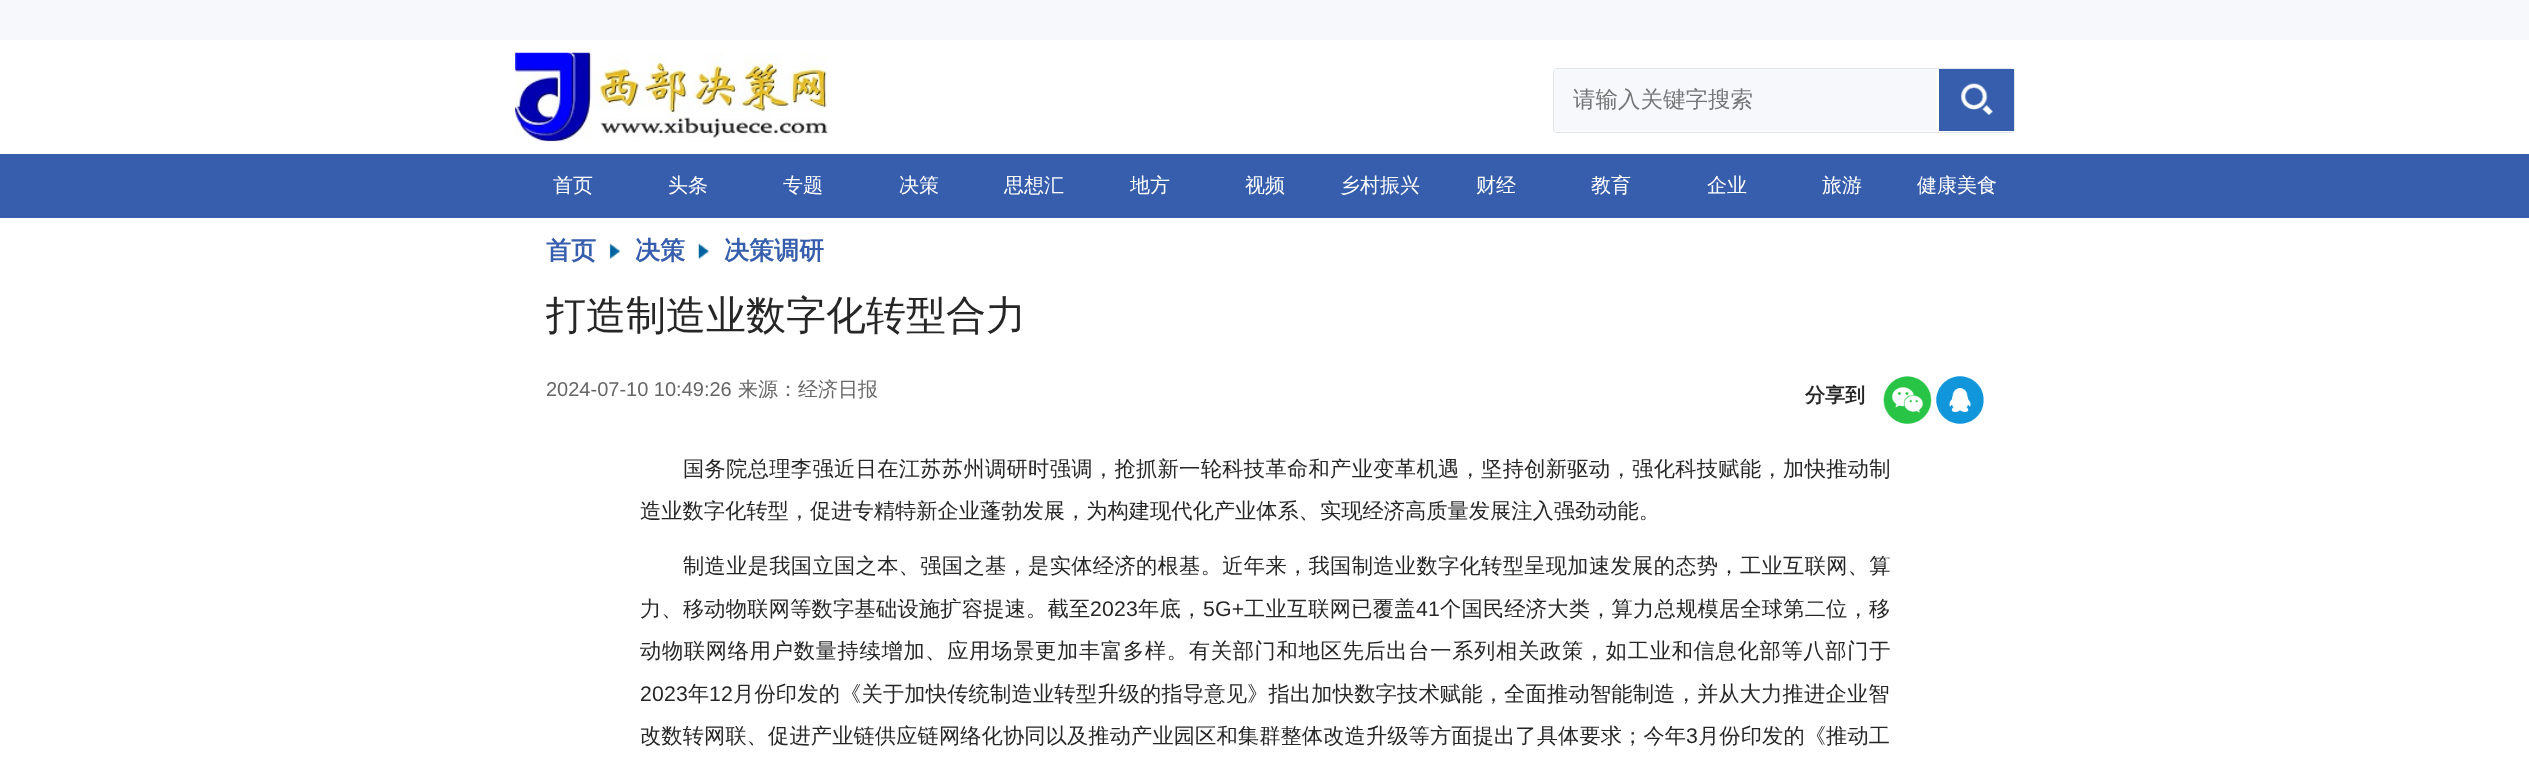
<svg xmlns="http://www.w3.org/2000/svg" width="2529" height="761">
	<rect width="100%" height="100%" fill="#FFFFFF" />
	<rect x="0" y="0" width="2529" height="40" fill="#F7F8FC" />
	<image x="515" y="52" width="313" height="90" href="assets/img1.png" />
	<rect x="1553.5" y="68.5" width="461" height="64" rx="3.5" fill="none" stroke="#E2E4EB" />
	<rect x="1554" y="69" width="382" height="62" fill="#F7F8FC" />
	<text x="1573" y="107" font-family="WenQuanYi Zen Hei" font-size="22.5" font-weight="500" fill="#757575">请输入关键字搜索</text>
	<rect x="1939" y="69" width="75" height="62" fill="#375EAD" />
	<image x="1961" y="83" width="32" height="32" href="assets/img2.png" />
	<rect x="0" y="154" width="2529" height="64" fill="#375EAD" />
	<g font-family="WenQuanYi Zen Hei" font-size="20" font-weight="500" fill="#FFFFFF">
		<text x="553" y="192">首页</text>
		<text x="668" y="192">头条</text>
		<text x="783" y="192">专题</text>
		<text x="899" y="192">决策</text>
		<text x="1004" y="192">思想汇</text>
		<text x="1130" y="192">地方</text>
		<text x="1245" y="192">视频</text>
		<text x="1340" y="192">乡村振兴</text>
		<text x="1476" y="192">财经</text>
		<text x="1591" y="192">教育</text>
		<text x="1707" y="192">企业</text>
		<text x="1822" y="192">旅游</text>
		<text x="1917" y="192">健康美食</text>
	</g>
	<text x="546" y="259" font-family="WenQuanYi Zen Hei" font-size="25" font-weight="700" fill="#375EAD">首页</text>
	<image x="609" y="243" width="12" height="16" href="assets/img3.png" />
	<text x="635" y="259" font-family="WenQuanYi Zen Hei" font-size="25" font-weight="700" fill="#375EAD">决策</text>
	<image x="698" y="243" width="11" height="16" href="assets/img4.png" />
	<text x="724" y="259" font-family="WenQuanYi Zen Hei" font-size="25" font-weight="700" fill="#375EAD">决策调研</text>
	<text x="546" y="329" font-family="WenQuanYi Zen Hei" font-size="40" font-weight="500" fill="#262626">打造制造业数字化转型合力</text>
	<text x="546" y="396" font-family="Liberation Sans" font-size="20" fill="#666666">2024-07-10 10:49:26</text>
	<text x="738" y="396" font-family="WenQuanYi Zen Hei" font-size="20" font-weight="500" fill="#666666">来源：经济日报</text>
	<text x="1805" y="402" font-family="WenQuanYi Zen Hei" font-size="20" font-weight="700" fill="#262626">分享到</text>
	<image x="1883" y="376" width="49" height="48" href="assets/img5.png" />
	<image x="1936" y="376" width="48" height="48" href="assets/img6.png" />
	<text x="683" y="476" font-family="WenQuanYi Zen Hei" font-size="21.25" font-weight="500" letter-spacing="0.32" fill="#262626">国务院总理李强近日在江苏苏州调研时强调，抢抓新一轮科技革命和产业变革机遇，坚持创新驱动，强化科技赋能，加快推动制</text>
	<text x="640" y="518" font-family="WenQuanYi Zen Hei" font-size="21.25" font-weight="500" fill="#262626">造业数字化转型，促进专精特新企业蓬勃发展，为构建现代化产业体系、实现经济高质量发展注入强劲动能。</text>
	<text x="683" y="573" font-family="WenQuanYi Zen Hei" font-size="21.25" font-weight="500" letter-spacing="0.32" fill="#262626">制造业是我国立国之本、强国之基，是实体经济的根基。近年来，我国制造业数字化转型呈现加速发展的态势，工业互联网、算</text>
	<text x="640" y="616" font-family="WenQuanYi Zen Hei" font-size="21.25" font-weight="500" letter-spacing="0.2" fill="#262626">力、移动物联网等数字基础设施扩容提速。截至</text>
	<text x="1090" y="616" font-family="Liberation Sans" font-size="21.25" letter-spacing="0.2" fill="#262626">2023</text>
	<text x="1138" y="616" font-family="WenQuanYi Zen Hei" font-size="21.25" font-weight="500" letter-spacing="0.2" fill="#262626">年底，</text>
	<text x="1203" y="616" font-family="Liberation Sans" font-size="21.25" letter-spacing="0.2" fill="#262626">5G+</text>
	<text x="1244" y="616" font-family="WenQuanYi Zen Hei" font-size="21.25" font-weight="500" letter-spacing="0.2" fill="#262626">工业互联网已覆盖</text>
	<text x="1416" y="616" font-family="Liberation Sans" font-size="21.25" letter-spacing="0.2" fill="#262626">41</text>
	<text x="1440" y="616" font-family="WenQuanYi Zen Hei" font-size="21.25" font-weight="500" letter-spacing="0.2" fill="#262626">个国民经济大类，算力总规模居全球第二位，移</text>
	<text x="640" y="658" font-family="WenQuanYi Zen Hei" font-size="21.25" font-weight="500" letter-spacing="0.7" fill="#262626">动物联网络用户数量持续增加、应用场景更加丰富多样。有关部门和地区先后出台一系列相关政策，如工业和信息化部等八部门于</text>
	<text x="640" y="701" font-family="Liberation Sans" font-size="21.25" letter-spacing="0.17" fill="#262626">2023</text>
	<text x="688" y="701" font-family="WenQuanYi Zen Hei" font-size="21.25" font-weight="500" letter-spacing="0.17" fill="#262626">年</text>
	<text x="709" y="701" font-family="Liberation Sans" font-size="21.25" letter-spacing="0.17" fill="#262626">12</text>
	<text x="733" y="701" font-family="WenQuanYi Zen Hei" font-size="21.25" font-weight="500" letter-spacing="0.17" fill="#262626">月份印发的《关于加快传统制造业转型升级的指导意见》指出加快数字技术赋能，全面推动智能制造，并从大力推进企业智</text>
	<text x="640" y="743" font-family="WenQuanYi Zen Hei" font-size="21.25" font-weight="500" letter-spacing="0.1" fill="#262626">改数转网联、促进产业链供应链网络化协同以及推动产业园区和集群整体改造升级等方面提出了具体要求；今年</text>
	<text x="1686" y="743" font-family="Liberation Sans" font-size="21.25" letter-spacing="0.1" fill="#262626">3</text>
	<text x="1698" y="743" font-family="WenQuanYi Zen Hei" font-size="21.25" font-weight="500" letter-spacing="0.1" fill="#262626">月份印发的《推动工</text>
</svg>
